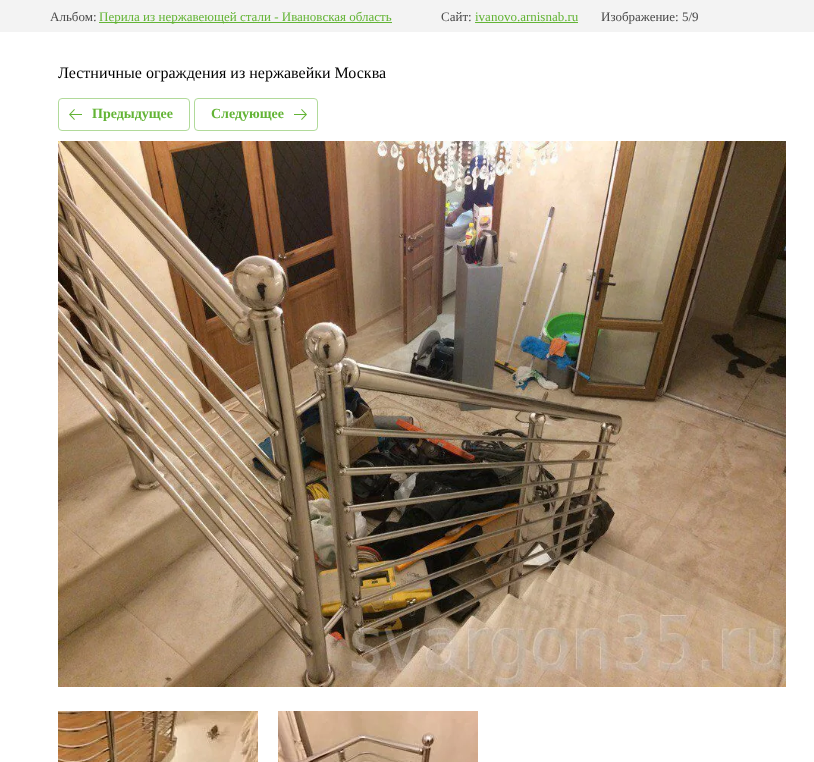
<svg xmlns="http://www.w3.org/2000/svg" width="814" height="762">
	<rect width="100%" height="100%" fill="#FFFFFF" />
	<rect x="0" y="0" width="814" height="32" fill="#F3F3F3" />
	<text x="50" y="21" font-family="Liberation Serif" font-size="13" fill="#484848">Альбом:</text>
	<rect x="99" y="22" width="293" height="1" fill="#63B435" />
	<text x="99" y="21" font-family="Liberation Serif" font-size="13" fill="#63B435">Перила из нержавеющей стали - Ивановская область</text>
	<text x="441" y="21" font-family="Liberation Serif" font-size="13" fill="#484848">Сайт:</text>
	<text x="475" y="21" font-family="Liberation Serif" font-size="13" fill="#63B435">ivanovo.arnisnab.ru</text>
	<rect x="475" y="22" width="103" height="1" fill="#63B435" />
	<text x="601" y="21" font-family="Liberation Serif" font-size="13" fill="#484848">Изображение: 5/9</text>
	<text x="58" y="78" font-family="Liberation Serif" font-size="16" fill="#000000">Лестничные ограждения из нержавейки Москва</text>
	<rect x="58.5" y="98.5" width="131" height="32" rx="3.5" fill="none" stroke="#B1DA9A" />
	<image x="69" y="109" width="13" height="11" href="assets/img1.png" />
	<text x="92" y="118" font-family="Liberation Serif" font-size="14" font-weight="700" fill="#63B435">Предыдущее</text>
	<rect x="194.5" y="98.5" width="123" height="32" rx="3.5" fill="none" stroke="#B1DA9A" />
	<text x="211" y="118" font-family="Liberation Serif" font-size="14" font-weight="700" fill="#63B435">Следующее</text>
	<image x="294" y="109" width="13" height="11" href="assets/img2.png" />
	<image x="58" y="141" width="728" height="546" href="assets/img3.png" />
	<image x="58" y="711" width="200" height="51" href="assets/img4.png" />
	<image x="278" y="711" width="200" height="51" href="assets/img5.png" />
</svg>
